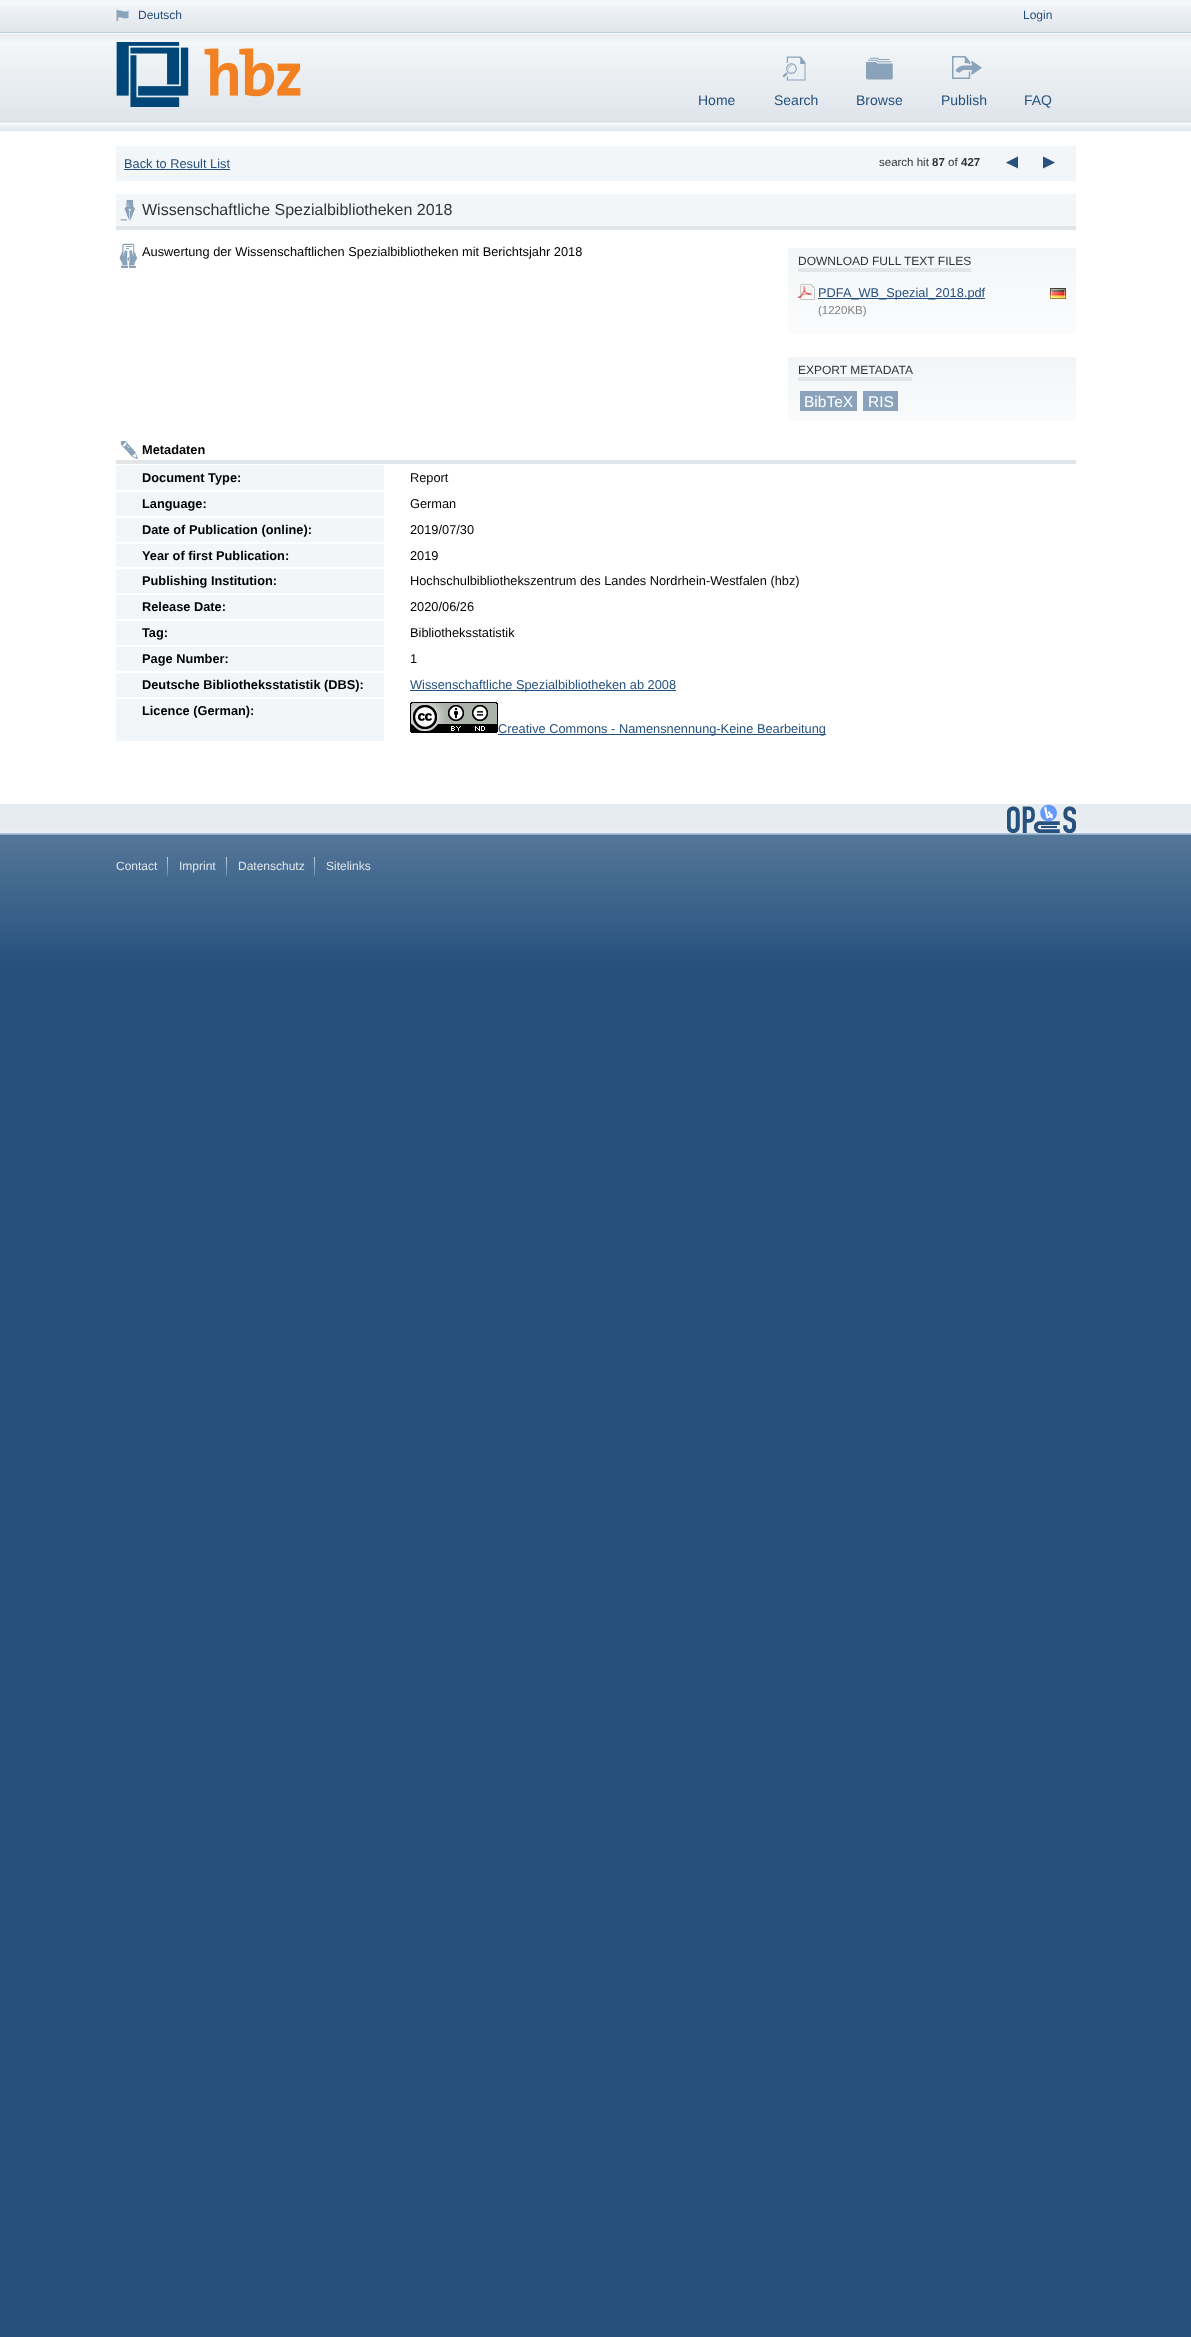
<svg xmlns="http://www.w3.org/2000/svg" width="1191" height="2337">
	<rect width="100%" height="100%" fill="#26517C" />
	<rect x="0" y="131" width="1191" height="673" fill="#FFFFFF" />
	<rect x="0" y="0" width="1191" height="6" fill="#F4F6F8" />
	<image x="0" y="6" width="1191" height="27" href="assets/img1.png" />
	<image x="116" y="9" width="13" height="12" href="assets/img2.png" />
	<g font-family="Liberation Sans" font-size="12" fill="#26517D">
		<text x="138" y="19">Deutsch</text>
		<text x="1023" y="19">Login</text>
	</g>
	<image x="0" y="33" width="1191" height="98" href="assets/img3.png" />
	<image x="116" y="42" width="185" height="65" href="assets/img4.png" />
	<text x="698" y="105" font-family="Liberation Sans" font-size="14" fill="#26517D">Home</text>
	<image x="782" y="56" width="24" height="25" href="assets/img5.png" />
	<text x="774" y="105" font-family="Liberation Sans" font-size="14" fill="#26517D">Search</text>
	<image x="866" y="57" width="27" height="23" href="assets/img6.png" />
	<text x="856" y="105" font-family="Liberation Sans" font-size="14" fill="#26517D">Browse</text>
	<image x="952" y="56" width="30" height="23" href="assets/img7.png" />
	<g font-family="Liberation Sans" font-size="14" fill="#26517D">
		<text x="941" y="105">Publish</text>
		<text x="1024" y="105">FAQ</text>
	</g>
	<rect x="116" y="146" width="960" height="35" fill="#F3F6F8" />
	<text x="124" y="168" font-family="Liberation Sans" font-size="12.8" fill="#26517D">Back to Result List</text>
	<rect x="124" y="169" width="106" height="1" fill="#26517D" />
	<text x="879" y="166" font-family="Liberation Sans" font-size="11.5" fill="#333333">search hit</text>
	<text x="932" y="166" font-family="Liberation Sans" font-size="11.5" font-weight="700" fill="#333333">87</text>
	<text x="948" y="166" font-family="Liberation Sans" font-size="11.5" fill="#333333">of</text>
	<text x="961" y="166" font-family="Liberation Sans" font-size="11.5" font-weight="700" fill="#333333">427</text>
	<image x="1006" y="156" width="12" height="13" href="assets/img8.png" />
	<image x="1043" y="156" width="12" height="13" href="assets/img9.png" />
	<rect x="116" y="194" width="960" height="32" fill="#F3F6F8" />
	<image x="120" y="200" width="15" height="21" href="assets/img10.png" />
	<rect x="116" y="226" width="960" height="4" fill="#E2E6E9" />
	<text x="142" y="215" font-family="Liberation Sans" font-size="16" fill="#333333">Wissenschaftliche Spezialbibliotheken 2018</text>
	<image x="119" y="243" width="18" height="25" href="assets/img11.png" />
	<text x="142" y="256" font-family="Liberation Sans" font-size="12.8" fill="#000000">Auswertung der Wissenschaftlichen Spezialbibliotheken mit Berichtsjahr 2018</text>
	<image x="788" y="248" width="288" height="85" href="assets/img12.png" />
	<rect x="798" y="268" width="173" height="4" fill="#E2E6E9" />
	<text x="798" y="265" font-family="Liberation Sans" font-size="12" fill="#333333">DOWNLOAD FULL TEXT FILES</text>
	<image x="798" y="284" width="17" height="16" href="assets/img13.png" />
	<rect x="818" y="298" width="167" height="1" fill="#26517D" />
	<text x="818" y="297" font-family="Liberation Sans" font-size="12.8" fill="#26517D">PDFA_WB_Spezial_2018.pdf</text>
	<image x="1050" y="288" width="16" height="11" href="assets/img14.png" />
	<text x="818" y="314" font-family="Liberation Sans" font-size="11.5" fill="#808080">(1220KB)</text>
	<image x="788" y="357" width="288" height="64" href="assets/img15.png" />
	<rect x="798" y="377" width="114" height="4" fill="#E2E6E9" />
	<text x="798" y="374" font-family="Liberation Sans" font-size="12" fill="#333333">EXPORT METADATA</text>
	<rect x="800" y="391" width="57" height="20" fill="#8AA3BB" />
	<text x="804" y="407" font-family="Liberation Sans" font-size="15.5" fill="#FFFFFF">BibTeX</text>
	<rect x="863" y="391" width="35" height="20" fill="#8AA3BB" />
	<text x="868" y="407" font-family="Liberation Sans" font-size="15.5" fill="#FFFFFF">RIS</text>
	<image x="120" y="441" width="18" height="18" href="assets/img16.png" />
	<rect x="116" y="460" width="960" height="4" fill="#E2E6E9" />
	<text x="142" y="454" font-family="Liberation Sans" font-size="12.8" font-weight="700" fill="#000000">Metadaten</text>
	<rect x="116" y="465" width="268" height="25" fill="#F3F6F8" />
	<text x="142" y="482" font-family="Liberation Sans" font-size="12.8" font-weight="700" fill="#000000">Document Type:</text>
	<text x="410" y="482" font-family="Liberation Sans" font-size="12.8" fill="#000000">Report</text>
	<rect x="116" y="492" width="268" height="24" fill="#F3F6F8" />
	<text x="142" y="508" font-family="Liberation Sans" font-size="12.8" font-weight="700" fill="#000000">Language:</text>
	<text x="410" y="508" font-family="Liberation Sans" font-size="12.8" fill="#000000">German</text>
	<rect x="116" y="518" width="268" height="24" fill="#F3F6F8" />
	<text x="142" y="534" font-family="Liberation Sans" font-size="12.8" font-weight="700" fill="#000000">Date of Publication (online):</text>
	<text x="410" y="534" font-family="Liberation Sans" font-size="12.8" fill="#000000">2019/07/30</text>
	<rect x="116" y="544" width="268" height="23" fill="#F3F6F8" />
	<text x="142" y="560" font-family="Liberation Sans" font-size="12.8" font-weight="700" fill="#000000">Year of first Publication:</text>
	<text x="410" y="560" font-family="Liberation Sans" font-size="12.8" fill="#000000">2019</text>
	<rect x="116" y="569" width="268" height="24" fill="#F3F6F8" />
	<text x="142" y="585" font-family="Liberation Sans" font-size="12.8" font-weight="700" fill="#000000">Publishing Institution:</text>
	<text x="410" y="585" font-family="Liberation Sans" font-size="12.8" fill="#000000">Hochschulbibliothekszentrum des Landes Nordrhein-Westfalen (hbz)</text>
	<rect x="116" y="595" width="268" height="24" fill="#F3F6F8" />
	<text x="142" y="611" font-family="Liberation Sans" font-size="12.8" font-weight="700" fill="#000000">Release Date:</text>
	<text x="410" y="611" font-family="Liberation Sans" font-size="12.8" fill="#000000">2020/06/26</text>
	<rect x="116" y="621" width="268" height="24" fill="#F3F6F8" />
	<text x="142" y="637" font-family="Liberation Sans" font-size="12.8" font-weight="700" fill="#000000">Tag:</text>
	<text x="410" y="637" font-family="Liberation Sans" font-size="12.8" fill="#000000">Bibliotheksstatistik</text>
	<rect x="116" y="647" width="268" height="24" fill="#F3F6F8" />
	<text x="142" y="663" font-family="Liberation Sans" font-size="12.8" font-weight="700" fill="#000000">Page Number:</text>
	<text x="410" y="663" font-family="Liberation Sans" font-size="12.8" fill="#000000">1</text>
	<rect x="116" y="673" width="268" height="24" fill="#F3F6F8" />
	<text x="142" y="689" font-family="Liberation Sans" font-size="12.8" font-weight="700" fill="#000000">Deutsche Bibliotheksstatistik (DBS):</text>
	<rect x="410" y="690" width="266" height="1" fill="#26517D" />
	<text x="410" y="689" font-family="Liberation Sans" font-size="12.8" fill="#26517D">Wissenschaftliche Spezialbibliotheken ab 2008</text>
	<rect x="116" y="699" width="268" height="42" fill="#F3F6F8" />
	<text x="142" y="715" font-family="Liberation Sans" font-size="12.8" font-weight="700" fill="#000000">Licence (German):</text>
	<image x="410" y="702" width="88" height="31" href="assets/img17.png" />
	<rect x="498" y="734" width="328" height="1" fill="#26517D" />
	<text x="498" y="733" font-family="Liberation Sans" font-size="12.8" fill="#26517D">Creative Commons - Namensnennung-Keine Bearbeitung</text>
	<rect x="0" y="804" width="1191" height="24" fill="#E7ECF0" />
	<image x="0" y="828" width="1191" height="139" href="assets/img18.png" />
	<image x="1007" y="804" width="69" height="29" href="assets/img19.png" />
	<image x="167" y="857" width="1" height="19" href="assets/img20.png" />
	<text x="116" y="870" font-family="Liberation Sans" font-size="12" fill="#DEE5EB">Contact</text>
	<image x="226" y="857" width="1" height="19" href="assets/img20.png" />
	<text x="179" y="870" font-family="Liberation Sans" font-size="12" fill="#DEE5EB">Imprint</text>
	<image x="314" y="857" width="1" height="19" href="assets/img20.png" />
	<g font-family="Liberation Sans" font-size="12" fill="#DEE5EB">
		<text x="238" y="870">Datenschutz</text>
		<text x="326" y="870">Sitelinks</text>
	</g>
</svg>
